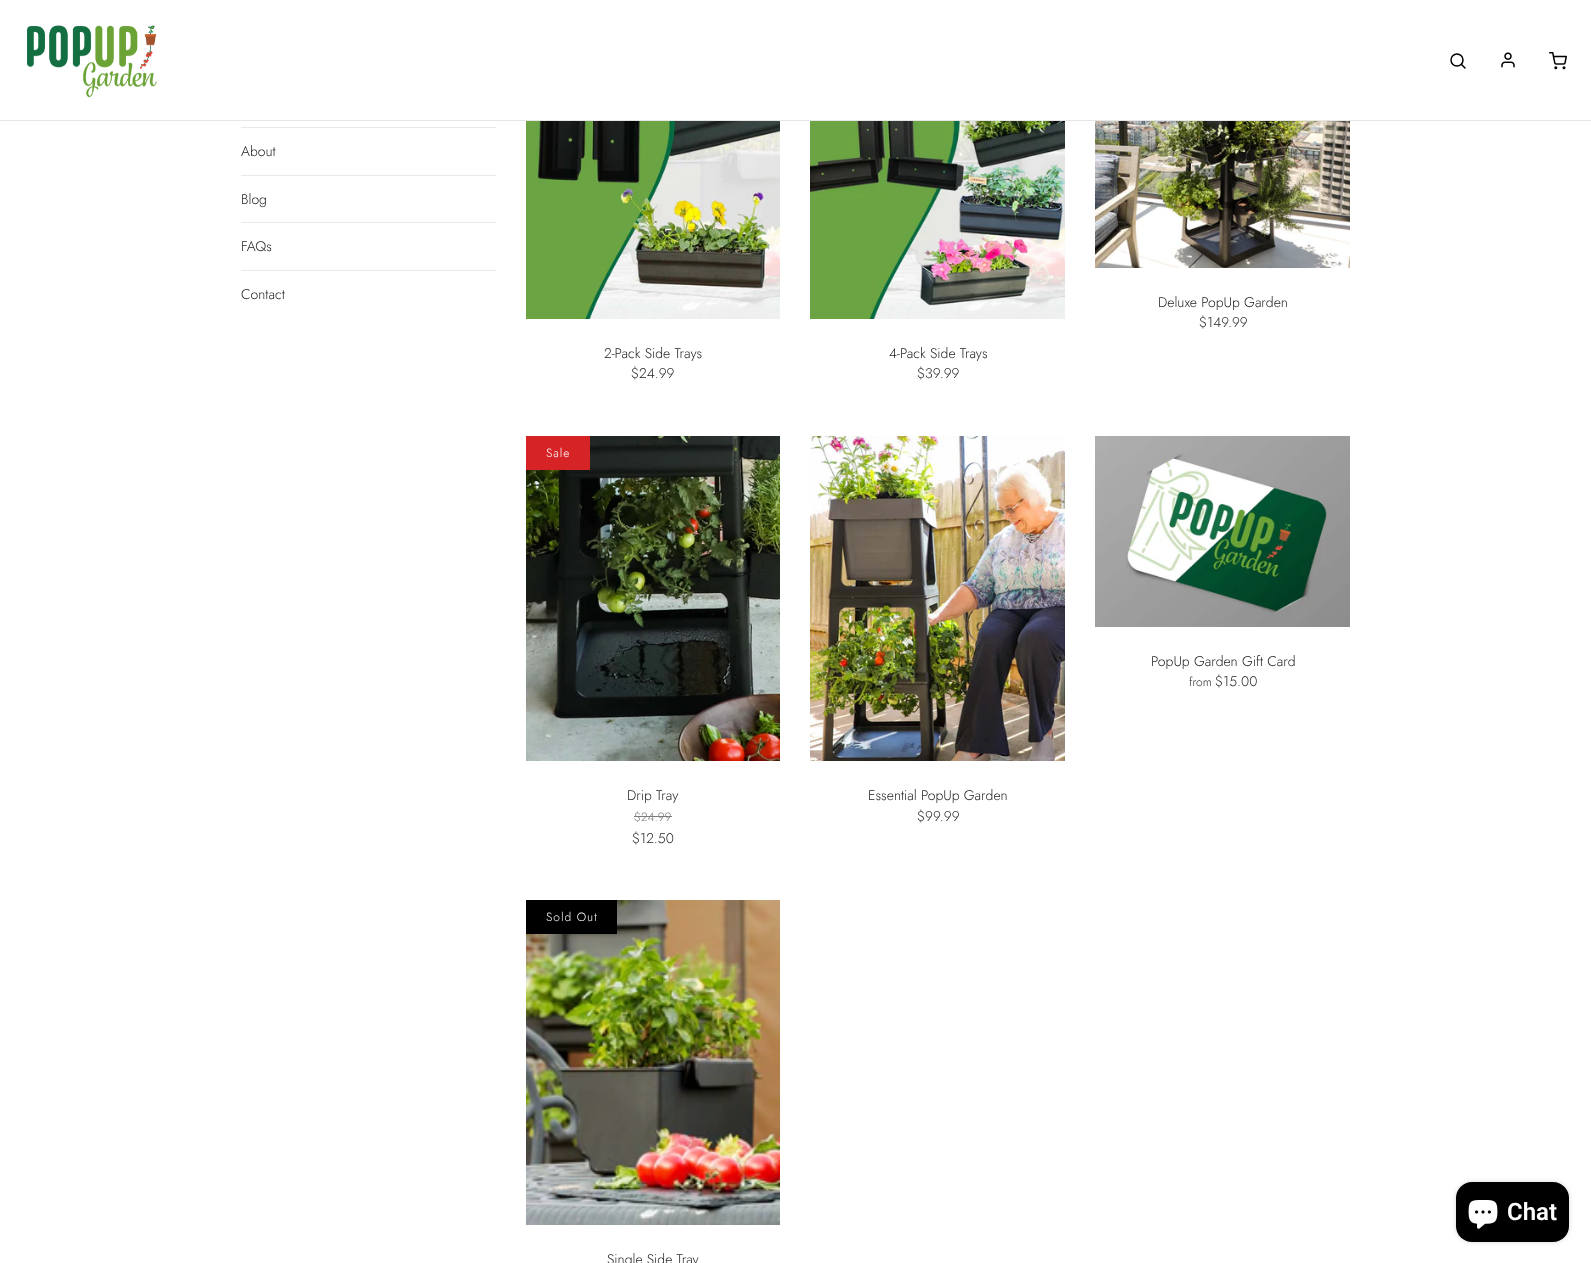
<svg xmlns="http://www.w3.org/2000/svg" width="1591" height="1263">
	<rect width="100%" height="100%" fill="#FFFFFF" />
	<rect x="0" y="120" width="1591" height="1" fill="#E6E6E6" />
	<image x="27" y="25" width="130" height="73" href="assets/img1.png" />
	<circle cx="1457" cy="60" r="6" fill="none" stroke="#000000" stroke-width="1.5" />
	<path d="M1465 68L1461.5 64.5" fill="none" stroke="#000000" stroke-width="1.5" stroke-linecap="round" stroke-linejoin="round" />
	<image x="1501" y="52" width="14" height="16" href="assets/img2.png" />
	<image x="1549" y="52" width="18" height="18" href="assets/img3.png" />
	<rect x="241" y="127" width="255" height="1" fill="#E9E9E9" />
	<rect x="241" y="175" width="255" height="1" fill="#E9E9E9" />
	<text x="241" y="156" font-family="Jost" font-size="14" font-weight="300" fill="#242424">About</text>
	<rect x="241" y="222" width="255" height="1" fill="#E9E9E9" />
	<text x="241" y="204" font-family="Jost" font-size="14" font-weight="300" fill="#242424">Blog</text>
	<rect x="241" y="270" width="255" height="1" fill="#E9E9E9" />
	<g font-family="Jost" font-size="14" font-weight="300" fill="#242424">
		<text x="241" y="251">FAQs</text>
		<text x="241" y="299">Contact</text>
	</g>
	<image x="1095" y="121" width="255" height="147" href="assets/img4.png" />
	<g font-family="Jost" font-size="14" font-weight="300" fill="#242424">
		<text x="1158" y="307">Deluxe PopUp Garden</text>
		<text x="1199" y="327">$149.99</text>
	</g>
	<image x="526" y="121" width="254" height="198" href="assets/img5.png" />
	<g font-family="Jost" font-size="14" font-weight="300" fill="#242424">
		<text x="604" y="358">2-Pack Side Trays</text>
		<text x="631" y="378">$24.99</text>
	</g>
	<image x="810" y="121" width="255" height="198" href="assets/img6.png" />
	<g font-family="Jost" font-size="14" font-weight="300" fill="#242424">
		<text x="889" y="358">4-Pack Side Trays</text>
		<text x="917" y="378">$39.99</text>
	</g>
	<image x="526" y="436" width="254" height="325" href="assets/img7.png" />
	<rect x="526" y="436" width="64" height="34" fill="#D62426" />
	<text x="546" y="457" font-family="Jost" font-size="12" font-weight="300" letter-spacing="1" fill="#FFFFFF">Sale</text>
	<text x="627" y="800" font-family="Jost" font-size="14" font-weight="300" fill="#242424">Drip Tray</text>
	<text x="634" y="821" font-family="Jost" font-size="12" font-weight="300" fill="#7C7C7C">$24.99</text>
	<rect x="634" y="816" width="38" height="1" fill="#7C7C7C" />
	<text x="632" y="843" font-family="Jost" font-size="14" font-weight="300" fill="#242424">$12.50</text>
	<image x="1095" y="436" width="255" height="191" href="assets/img8.png" />
	<text x="1151" y="666" font-family="Jost" font-size="14" font-weight="300" fill="#242424">PopUp Garden Gift Card</text>
	<text x="1189" y="686" font-family="Jost" font-size="12" font-weight="300" fill="#242424">from</text>
	<text x="1215" y="686" font-family="Jost" font-size="14" font-weight="300" fill="#242424">$15.00</text>
	<image x="810" y="436" width="255" height="325" href="assets/img9.png" />
	<g font-family="Jost" font-size="14" font-weight="300" fill="#242424">
		<text x="868" y="800">Essential PopUp Garden</text>
		<text x="917" y="821">$99.99</text>
	</g>
	<image x="526" y="900" width="254" height="325" href="assets/img10.png" />
	<rect x="526" y="900" width="91" height="34" fill="#000000" />
	<text x="546" y="921" font-family="Jost" font-size="12" font-weight="300" letter-spacing="1" fill="#FFFFFF">Sold Out</text>
	<text x="607" y="1264" font-family="Jost" font-size="14" font-weight="300" fill="#242424">Single Side Tray</text>
	<rect x="1456" y="1182" width="113" height="60" rx="16" fill="#000000" fill-opacity="0.15" filter="blur(2.5px)" />
	<rect x="1456" y="1182" width="113" height="60" rx="16" fill="#000000" />
	<image x="1468" y="1200" width="30" height="29" href="assets/img11.png" />
	<text x="1507" y="1220" font-family="Roboto" font-size="24" font-weight="600" fill="#FFFFFF">Chat</text>
</svg>
